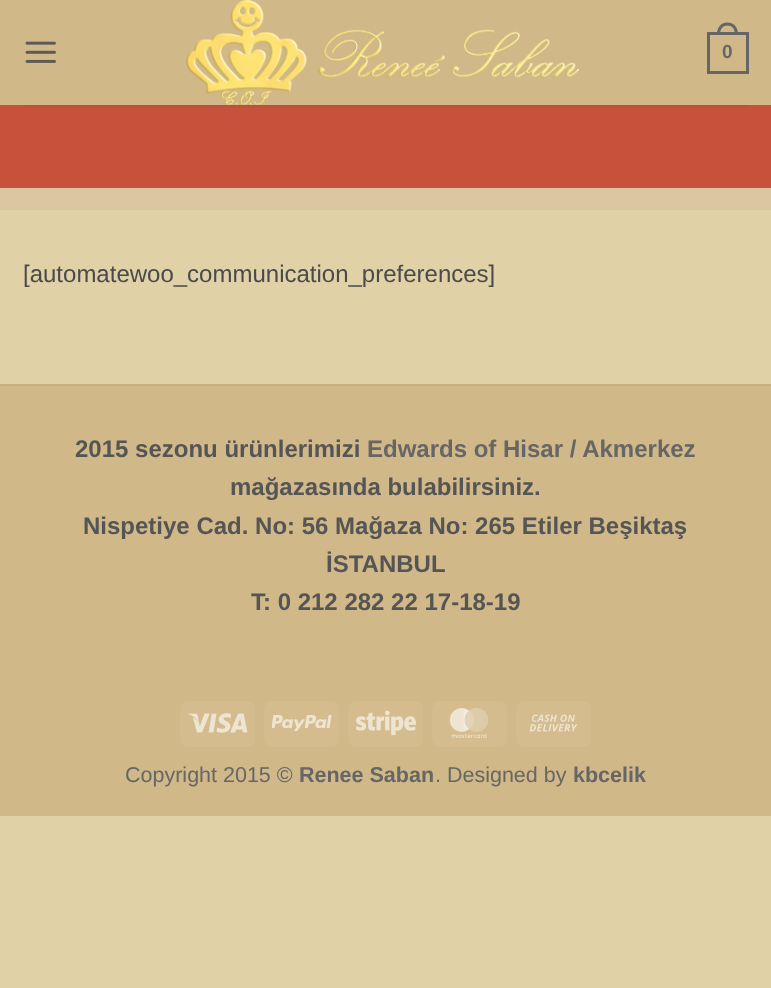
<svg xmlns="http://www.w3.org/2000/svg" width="771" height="988">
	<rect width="100%" height="100%" fill="#E1D1A7" />
	<rect x="0" y="188" width="771" height="22" fill="#DAC79F" />
	<rect x="0" y="0" width="771" height="105" fill="#D1B888" />
	<image x="25" y="41" width="31" height="22" href="assets/img1.png" />
	<image x="186" y="0" width="393" height="105" href="assets/img2.png" />
	<rect x="708.5" y="33.5" width="39" height="39" fill="none" stroke="#666666" stroke-width="3" />
	<path d="M727.5 22.5C734.5 22.5 738 28 738 34.5H717C717 28 720.5 22.5 727.5 22.5ZM727.5 25.5C733 25.5 735 30 735 34.5H720C720 30 722 25.5 727.5 25.5Z" fill="#666666" fill-rule="evenodd" />
	<text x="722" y="58" font-family="Liberation Sans" font-size="19" font-weight="700" fill="#666666">0</text>
	<rect x="0" y="105" width="771" height="83" fill="#C8513C" />
	<rect x="23" y="105" width="726" height="2" fill="#BB503D" />
	<text x="23" y="282" font-family="Liberation Sans" font-size="24" fill="#4A4A4A">[automatewoo_communication_preferences]</text>
	<rect x="0" y="386" width="771" height="430" fill="#D1B888" />
	<rect x="0" y="384" width="771" height="2" fill="#C7AF81" />
	<text x="75" y="457" font-family="Liberation Sans" font-size="24" font-weight="700" fill="#555555">2015 sezonu ürünlerimizi</text>
	<text x="367" y="457" font-family="Liberation Sans" font-size="24" font-weight="700" fill="#666666">Edwards of Hisar / Akmerkez</text>
	<g font-family="Liberation Sans" font-size="24" font-weight="700" fill="#555555">
		<text x="230" y="495">mağazasında bulabilirsiniz.</text>
		<text x="83" y="534">Nispetiye Cad. No: 56 Mağaza No: 265 Etiler Beşiktaş</text>
		<text x="326" y="572">İSTANBUL</text>
		<text x="251" y="610">T: 0 212 282 22 17-18-19</text>
	</g>
	<rect x="180" y="701" width="75" height="46" rx="8" fill="#D4BC8F" />
	<image x="188" y="713" width="60" height="20" href="assets/img3.png" />
	<rect x="264" y="701" width="75" height="46" rx="8" fill="#D4BC8F" />
	<image x="272" y="715" width="60" height="16" href="assets/img4.png" />
	<rect x="348" y="701" width="75" height="46" rx="8" fill="#D4BC8F" />
	<image x="356" y="710" width="60" height="26" href="assets/img5.png" />
	<rect x="432" y="701" width="75" height="46" rx="8" fill="#D4BC8F" />
	<image x="449" y="708" width="40" height="30" href="assets/img6.png" />
	<rect x="516" y="701" width="75" height="46" rx="8" fill="#D4BC8F" />
	<image x="529" y="714" width="49" height="18" href="assets/img7.png" />
	<text x="125" y="782" font-family="Liberation Sans" font-size="21.5" fill="#666666">Copyright 2015 ©</text>
	<text x="299" y="782" font-family="Liberation Sans" font-size="21.5" font-weight="700" fill="#666666">Renee Saban</text>
	<text x="435" y="782" font-family="Liberation Sans" font-size="21.5" fill="#666666">. Designed by</text>
	<text x="573" y="782" font-family="Liberation Sans" font-size="21.5" font-weight="700" fill="#666666">kbcelik</text>
</svg>
